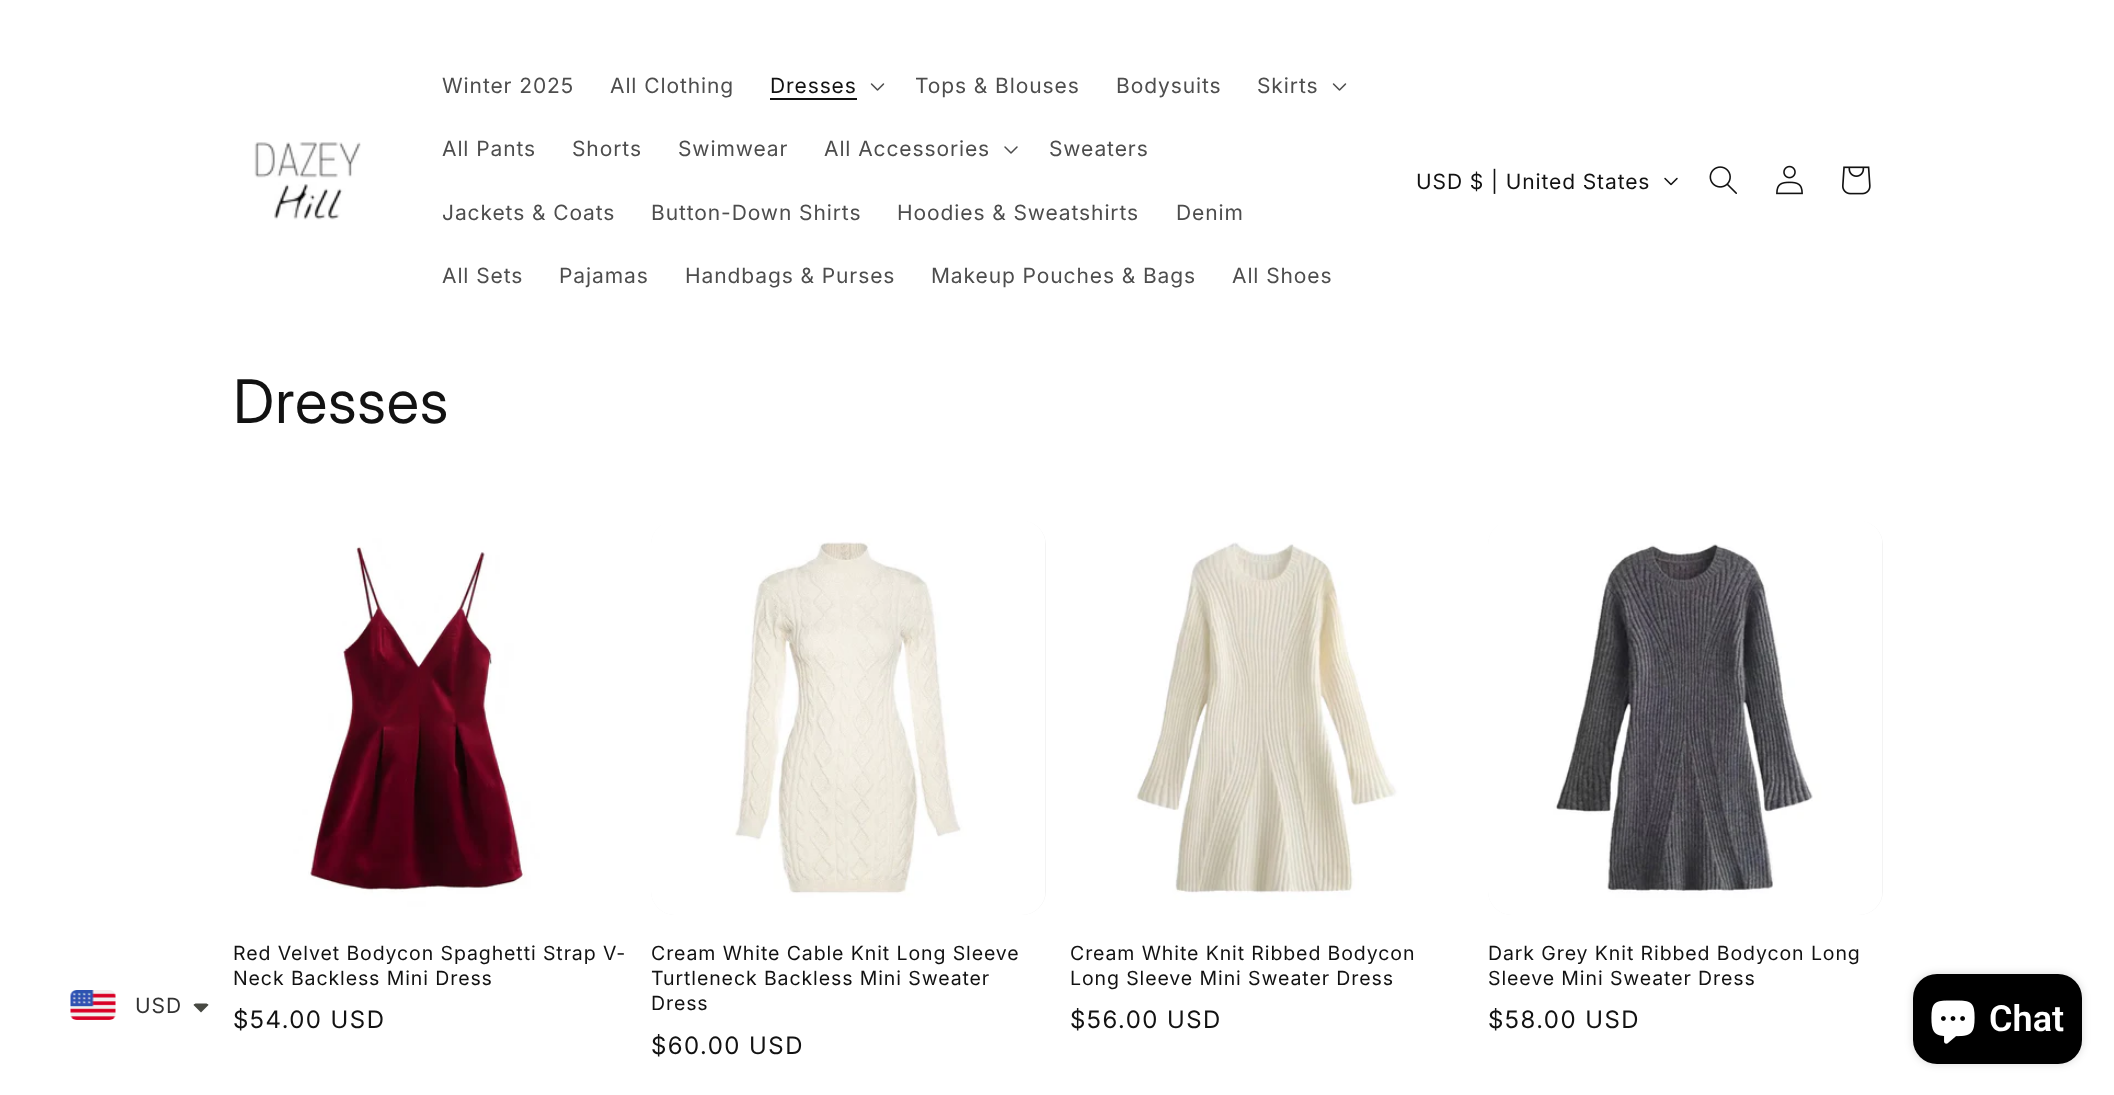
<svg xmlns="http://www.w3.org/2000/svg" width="2114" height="1095">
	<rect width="100%" height="100%" fill="#FFFFFF" />
	<image x="254" y="142" width="107" height="78" href="assets/img1.png" />
	<g font-family="'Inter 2'" font-size="21" letter-spacing="0.9" fill="#4D4D4D">
		<text x="442" y="93">Winter 2025</text>
		<text x="610" y="93">All Clothing</text>
	</g>
	<text x="770" y="93" font-family="'Inter 2'" font-size="21" letter-spacing="0.9" fill="#121212">Dresses</text>
	<rect x="770" y="98" width="87" height="2" fill="#121212" />
	<image x="870" y="83" width="15" height="8" href="assets/img2.png" />
	<g font-family="'Inter 2'" font-size="21" letter-spacing="0.9" fill="#4D4D4D">
		<text x="915" y="93">Tops &amp; Blouses</text>
		<text x="1116" y="93">Bodysuits</text>
		<text x="1257" y="93">Skirts</text>
	</g>
	<image x="1332" y="83" width="15" height="8" href="assets/img2.png" />
	<g font-family="'Inter 2'" font-size="21" letter-spacing="0.9" fill="#4D4D4D">
		<text x="442" y="156">All Pants</text>
		<text x="572" y="156">Shorts</text>
		<text x="678" y="156">Swimwear</text>
		<text x="824" y="156">All Accessories</text>
	</g>
	<image x="1004" y="146" width="14" height="8" href="assets/img3.png" />
	<g font-family="'Inter 2'" font-size="21" letter-spacing="0.9" fill="#4D4D4D">
		<text x="1049" y="156">Sweaters</text>
		<text x="442" y="220">Jackets &amp; Coats</text>
		<text x="651" y="220">Button-Down Shirts</text>
		<text x="897" y="220">Hoodies &amp; Sweatshirts</text>
		<text x="1176" y="220">Denim</text>
		<text x="442" y="283">All Sets</text>
		<text x="559" y="283">Pajamas</text>
		<text x="685" y="283">Handbags &amp; Purses</text>
		<text x="931" y="283">Makeup Pouches &amp; Bags</text>
		<text x="1232" y="283">All Shoes</text>
	</g>
	<text x="1416" y="189" font-family="'Inter 2'" font-size="21" letter-spacing="0.9" fill="#121212">USD $ | United States</text>
	<image x="1664" y="177" width="14" height="9" href="assets/img4.png" />
	<image x="1709" y="166" width="28" height="28" href="assets/img5.png" />
	<image x="1776" y="165" width="27" height="30" href="assets/img6.png" />
	<image x="1842" y="166" width="29" height="29" href="assets/img7.png" />
	<image x="70" y="990" width="46" height="30" href="assets/img8.png" />
	<text x="135" y="1013" font-family="'Inter 2'" font-size="21" letter-spacing="0.9" fill="#333333">USD</text>
	<path d="M196.5 1003.5C195 1003.5 194 1004 193.5 1005L201 1012.5L208.5 1005C208 1004 207 1003.5 205.5 1003.5Z" fill="#474942" />
	<text x="233" y="423" font-family="Inter" font-size="60" letter-spacing="0.9" fill="#121212">Dresses</text>
	<image x="233" y="521" width="394" height="394" href="assets/img9.png" />
	<g font-family="'Inter 2'" font-size="19.5" letter-spacing="0.9" fill="#121212">
		<text x="233" y="960">Red Velvet Bodycon Spaghetti Strap V-</text>
		<text x="233" y="985">Neck Backless Mini Dress</text>
	</g>
	<text x="233" y="1028" font-family="'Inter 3'" font-size="24" letter-spacing="1.5" fill="#121212">$54.00 USD</text>
	<rect x="651" y="521" width="395" height="394" rx="24" fill="#F3F3F3" />
	<image x="651" y="521" width="394" height="394" href="assets/img10.png" />
	<g font-family="'Inter 2'" font-size="19.5" letter-spacing="0.9" fill="#121212">
		<text x="651" y="960">Cream White Cable Knit Long Sleeve</text>
		<text x="651" y="985">Turtleneck Backless Mini Sweater</text>
		<text x="651" y="1010">Dress</text>
	</g>
	<text x="651" y="1054" font-family="'Inter 3'" font-size="24" letter-spacing="1.5" fill="#121212">$60.00 USD</text>
	<image x="1070" y="521" width="394" height="394" href="assets/img11.png" />
	<g font-family="'Inter 2'" font-size="19.5" letter-spacing="0.9" fill="#121212">
		<text x="1070" y="960">Cream White Knit Ribbed Bodycon</text>
		<text x="1070" y="985">Long Sleeve Mini Sweater Dress</text>
	</g>
	<text x="1070" y="1028" font-family="'Inter 3'" font-size="24" letter-spacing="1.5" fill="#121212">$56.00 USD</text>
	<rect x="1488" y="521" width="395" height="394" rx="24" fill="#F3F3F3" />
	<image x="1488" y="521" width="394" height="394" href="assets/img12.png" />
	<g font-family="'Inter 2'" font-size="19.5" letter-spacing="0.9" fill="#121212">
		<text x="1488" y="960">Dark Grey Knit Ribbed Bodycon Long</text>
		<text x="1488" y="985">Sleeve Mini Sweater Dress</text>
	</g>
	<text x="1488" y="1028" font-family="'Inter 3'" font-size="24" letter-spacing="1.5" fill="#121212">$58.00 USD</text>
	<rect x="1913" y="974" width="169" height="90" rx="24" fill="#000000" fill-opacity="0.15" filter="blur(4px)" />
	<rect x="1913" y="974" width="169" height="90" rx="24" fill="#000000" />
	<image x="1931" y="1000" width="44" height="44" href="assets/img13.png" />
	<text x="1989" y="1031" font-family="Roboto" font-size="36" font-weight="600" fill="#FFFFFF">Chat</text>
</svg>
